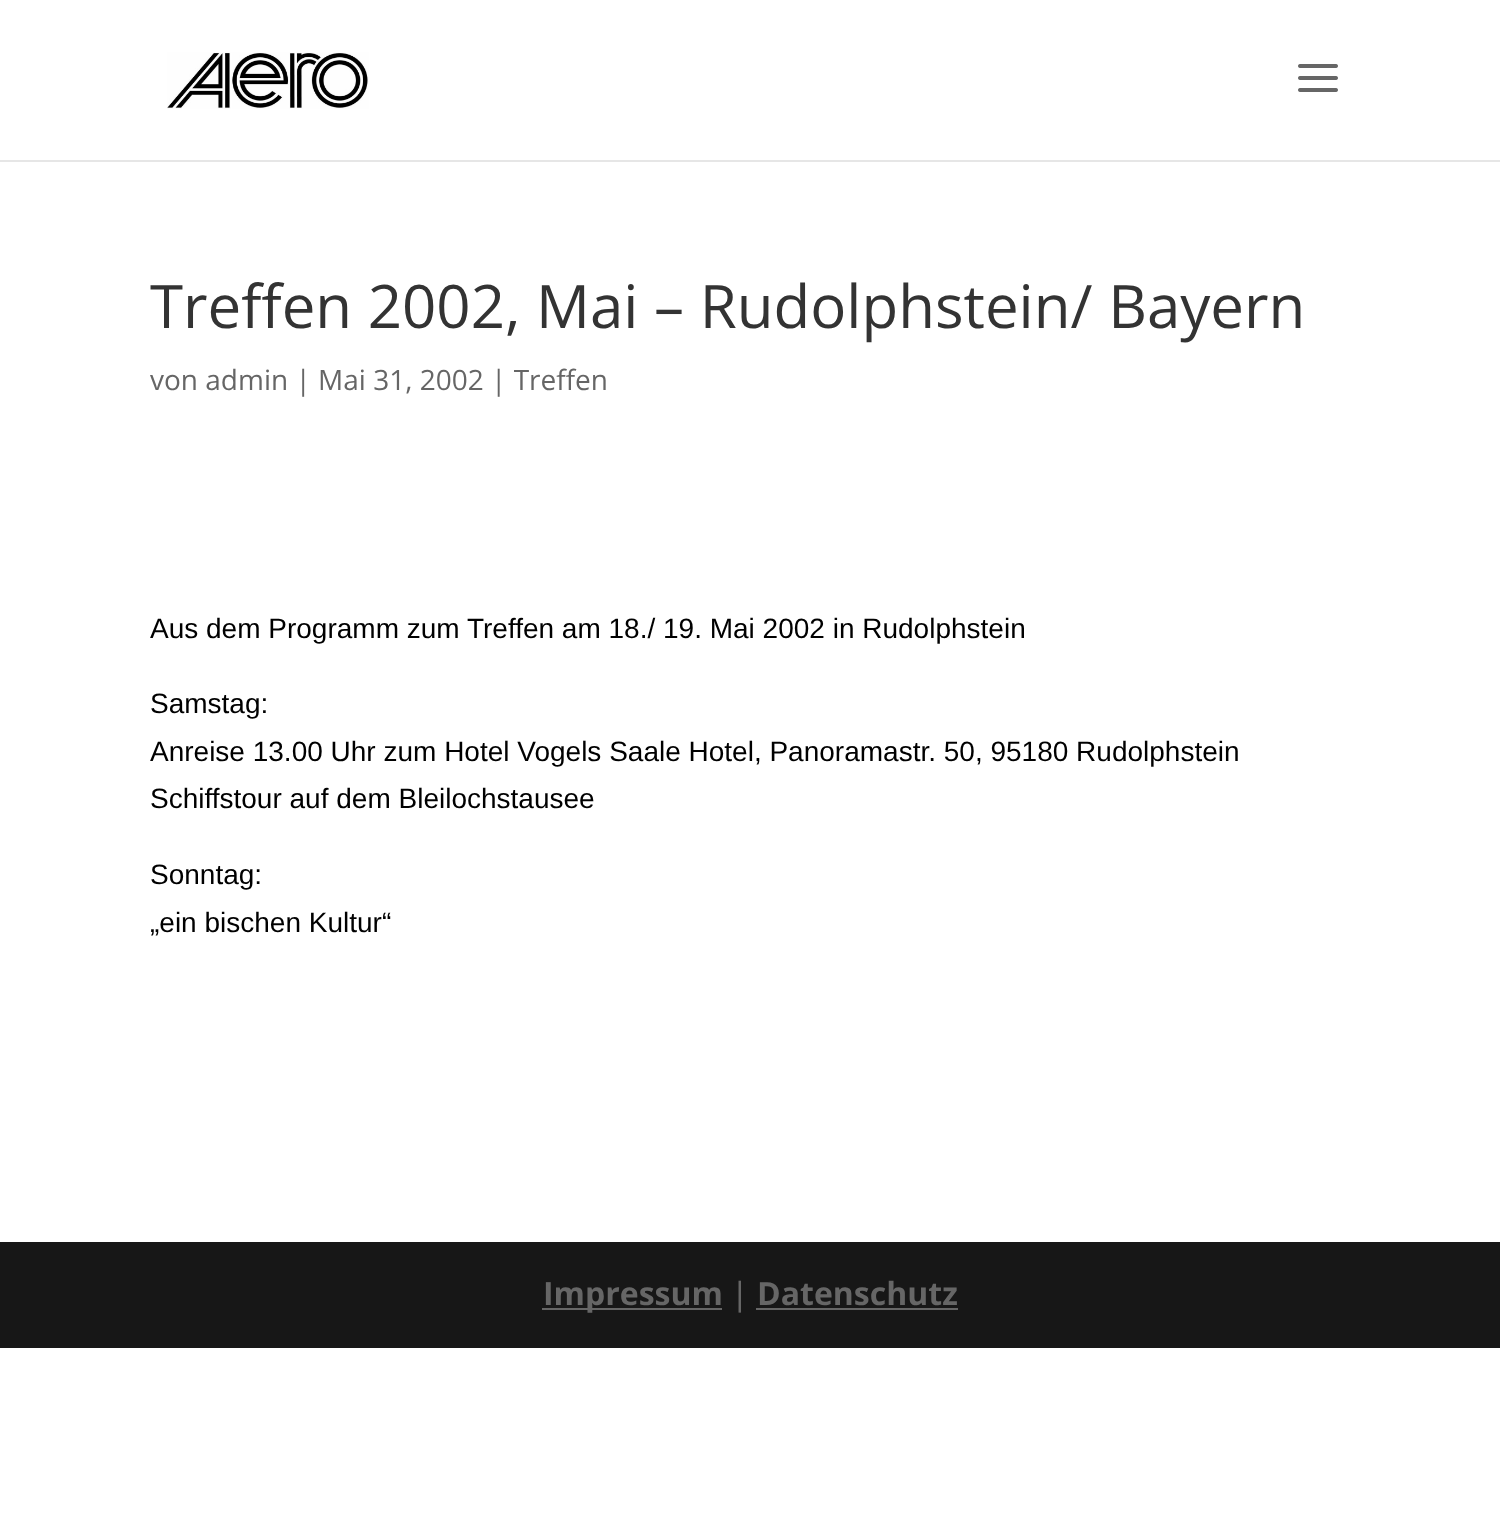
<svg xmlns="http://www.w3.org/2000/svg" width="1500" height="1517">
	<rect width="100%" height="100%" fill="#FFFFFF" />
	<rect x="0" y="160" width="1500" height="2" fill="#E6E6E6" />
	<image x="167" y="52" width="202" height="57" href="assets/img1.png" />
	<image x="1298" y="64" width="40" height="28" href="assets/img2.png" />
	<text x="150" y="328" font-family="Open Sans" font-size="60" fill="#333333">Treffen 2002, Mai – Rudolphstein/ Bayern</text>
	<text x="150" y="390" font-family="Open Sans" font-size="28" fill="#666666">von admin | Mai 31, 2002 | Treffen</text>
	<g font-family="Liberation Sans" font-size="28" fill="#000000">
		<text x="150" y="638">Aus dem Programm zum Treffen am 18./ 19. Mai 2002 in Rudolphstein</text>
		<text x="150" y="713">Samstag:</text>
		<text x="150" y="761">Anreise 13.00 Uhr zum Hotel Vogels Saale Hotel, Panoramastr. 50, 95180 Rudolphstein</text>
		<text x="150" y="808">Schiffstour auf dem Bleilochstausee</text>
		<text x="150" y="884">Sonntag:</text>
		<text x="150" y="932">„ein bischen Kultur“</text>
	</g>
	<rect x="0" y="1242" width="1500" height="106" fill="#171717" />
	<rect x="542" y="1308" width="180" height="2" fill="#666666" />
	<text x="543" y="1305" font-family="Open Sans" font-size="32" font-weight="700" fill="#666666">Impressum</text>
	<text x="731" y="1305" font-family="Open Sans" font-size="32" font-weight="500" fill="#666666">|</text>
	<text x="757" y="1305" font-family="Open Sans" font-size="32" font-weight="700" fill="#666666">Datenschutz</text>
	<rect x="756" y="1308" width="202" height="2" fill="#666666" />
</svg>
